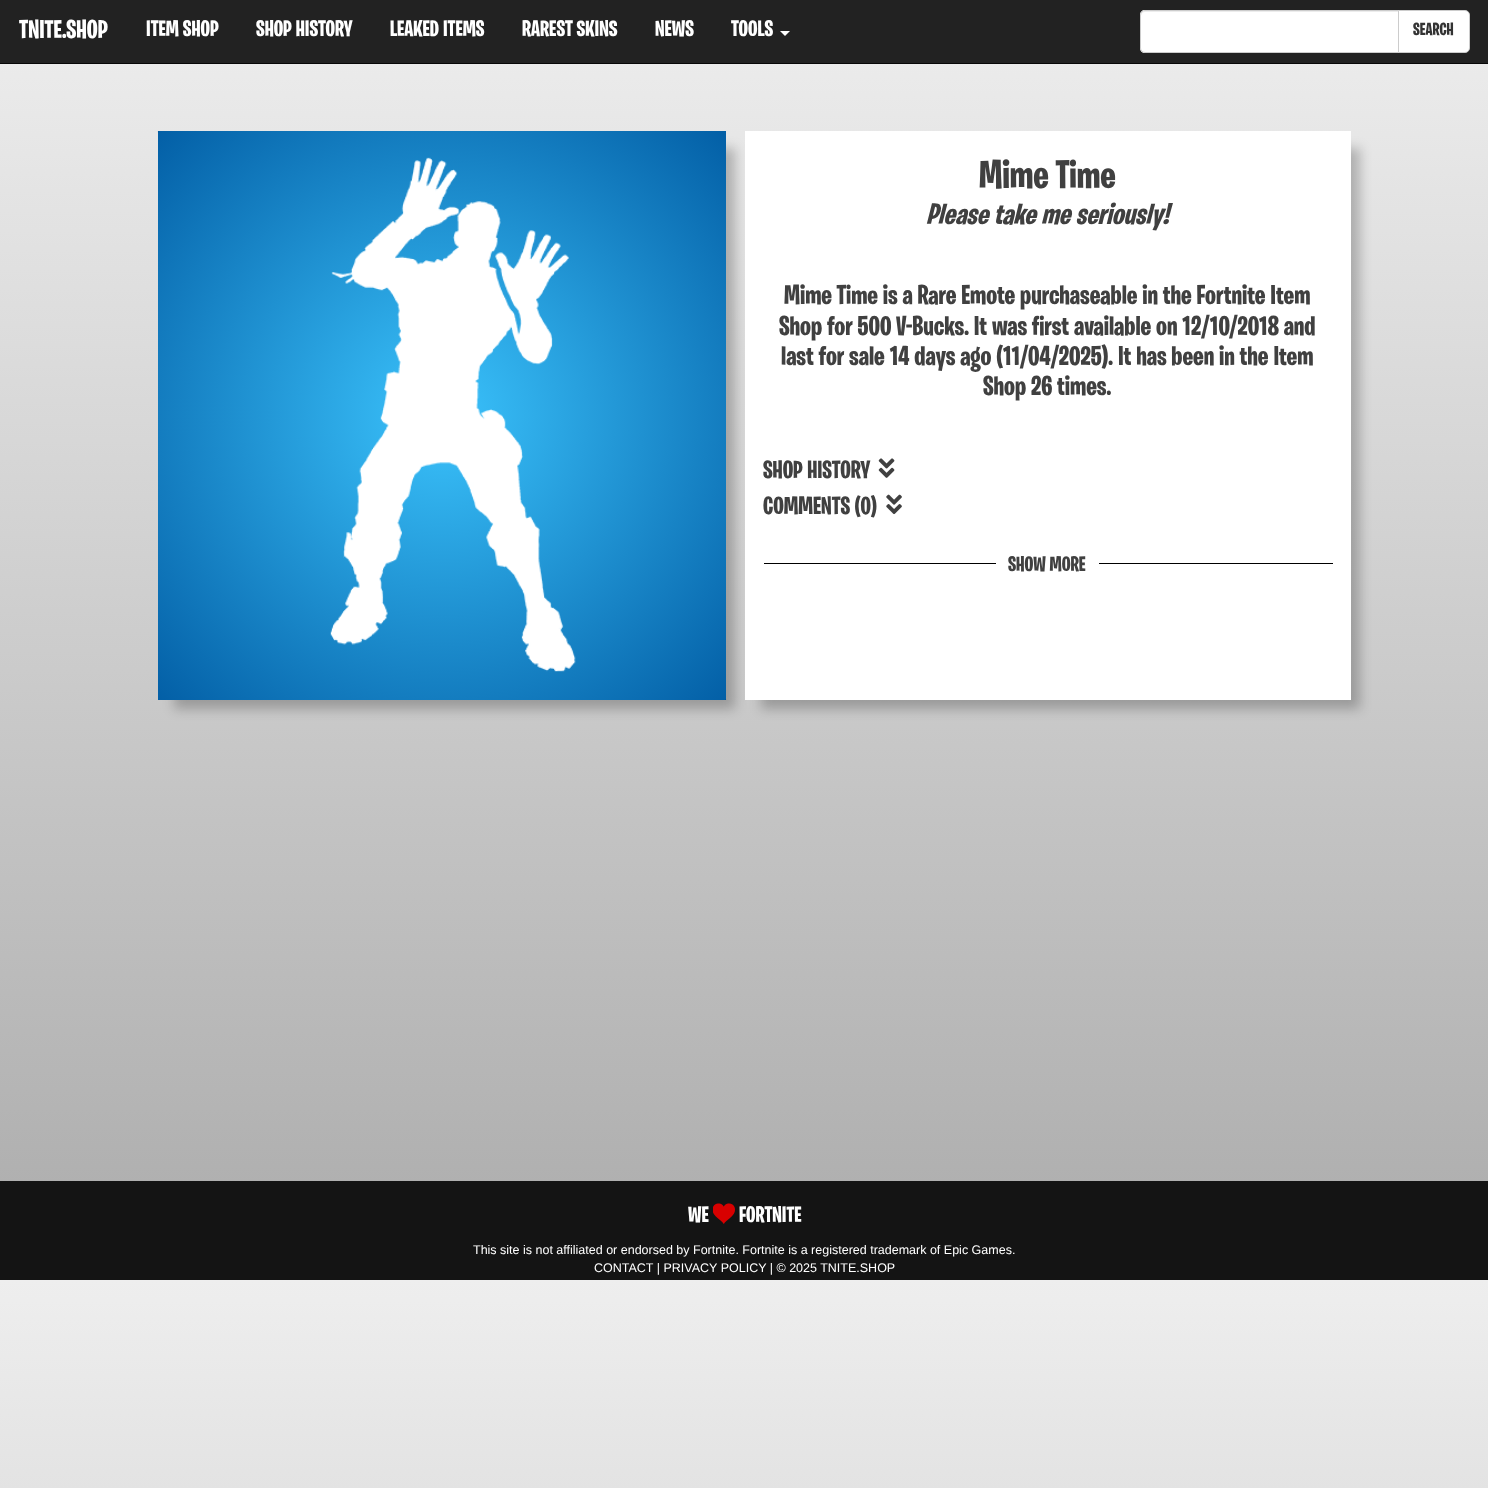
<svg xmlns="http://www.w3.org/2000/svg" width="1488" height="1488">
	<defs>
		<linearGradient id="g1" gradientUnits="userSpaceOnUse" x1="744" y1="0" x2="744" y2="1280"><stop offset="0" stop-color="#EEEEEE" /><stop offset="1" stop-color="#ABABAB" /></linearGradient>
		<linearGradient id="g2" gradientUnits="userSpaceOnUse" x1="744" y1="1280" x2="744" y2="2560"><stop offset="0" stop-color="#EEEEEE" /><stop offset="1" stop-color="#ABABAB" /></linearGradient>
		<radialGradient id="g3" gradientUnits="userSpaceOnUse" cx="442" cy="416" r="402"><stop offset="0" stop-color="#3BC3FC" /><stop offset="1" stop-color="#035FA6" /></radialGradient>
	</defs>
	<rect width="100%" height="100%" fill="#FFFFFF" />
	<rect x="0" y="64" width="1488" height="1117" fill="url(#g1)" />
	<rect x="0" y="1280" width="1488" height="208" fill="url(#g2)" />
	<rect x="0" y="0" width="1488" height="63" fill="#222222" />
	<rect x="0" y="63" width="1488" height="1" fill="#080808" />
	<text x="19" y="38" font-family="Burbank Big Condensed" font-size="26" font-weight="700" fill="#FFFFFF">TNITE.SHOP</text>
	<g font-family="Burbank Big Condensed" font-size="22.5" font-weight="700" fill="#FFFFFF">
		<text x="146" y="36">ITEM SHOP</text>
		<text x="256" y="36">SHOP HISTORY</text>
		<text x="390" y="36">LEAKED ITEMS</text>
		<text x="522" y="36">RAREST SKINS</text>
		<text x="655" y="36">NEWS</text>
		<text x="731" y="36">TOOLS</text>
	</g>
	<path d="M780 31H790L785 36Z" fill="#FFFFFF" />
	<path d="M1145 10H1399V53H1145C1142 53 1140 51 1140 48V15C1140 12 1142 10 1145 10Z" fill="#FFFFFF" />
	<path d="M1145 12H1398V11H1145C1143 11 1141 13 1141 15V16C1141 14 1143 12 1145 12Z" fill="#ECECEC" />
	<path d="M1145 10.5H1398.5V52.5H1145C1142.5 52.5 1140.5 50.5 1140.5 48V15C1140.5 12.5 1142.5 10.5 1145 10.5Z" fill="none" stroke="#CCCCCC" />
	<path d="M1398.5 10.5H1465C1467.5 10.5 1469.5 12.5 1469.5 15V48C1469.5 50.5 1467.5 52.5 1465 52.5H1398.5Z" fill="#FFFFFF" stroke="#CCCCCC" />
	<text x="1413" y="35" font-family="Burbank Big Condensed" font-size="17.5" font-weight="700" fill="#333333">SEARCH</text>
	<rect x="174" y="148" width="561" height="561" fill="#000000" fill-opacity="0.23" filter="blur(6px)" />
	<rect x="158" y="131" width="568" height="569" fill="url(#g3)" />
	<image x="157" y="131" width="570" height="569" href="assets/img1.png" />
	<rect x="761" y="148" width="599" height="561" fill="#000000" fill-opacity="0.23" filter="blur(6px)" />
	<rect x="745" y="131" width="606" height="569" fill="#FFFFFF" />
	<text x="979" y="188" font-family="Burbank Big Condensed" font-size="40" font-weight="700" fill="#404040">Mime Time</text>
	<text x="926" y="224" font-family="Burbank Big Condensed" font-size="30" font-weight="700" font-style="italic" fill="#404040">Please take me seriously!</text>
	<g font-family="Burbank Big Condensed" font-size="27.5" font-weight="700" fill="#404040">
		<text x="784" y="304">Mime Time is a Rare Emote purchaseable in the Fortnite Item</text>
		<text x="779" y="335">Shop for 500 V-Bucks. It was first available on 12/10/2018 and</text>
		<text x="781" y="365">last for sale 14 days ago (11/04/2025). It has been in the Item</text>
		<text x="983" y="395">Shop 26 times.</text>
	</g>
	<text x="763" y="478" font-family="Burbank Big Condensed" font-size="25" font-weight="700" fill="#404040">SHOP HISTORY</text>
	<image x="878" y="458" width="17" height="20" href="assets/img2.png" />
	<text x="763" y="514" font-family="Burbank Big Condensed" font-size="25" font-weight="700" fill="#404040">COMMENTS (0)</text>
	<image x="886" y="494" width="16" height="21" href="assets/img3.png" />
	<rect x="764" y="563" width="569" height="1" fill="#000000" />
	<rect x="996" y="563" width="103" height="1" fill="#FFFFFF" />
	<text x="1008" y="571" font-family="Burbank Big Condensed" font-size="21" font-weight="700" fill="#404040">SHOW MORE</text>
	<rect x="0" y="1181" width="1488" height="99" fill="#141414" />
	<text x="688" y="1222" font-family="Burbank Big Condensed" font-size="22.5" font-weight="700" fill="#FFFFFF">WE</text>
	<image x="713" y="1203" width="22" height="21" href="assets/img4.png" />
	<text x="739" y="1222" font-family="Burbank Big Condensed" font-size="22.5" font-weight="700" fill="#FFFFFF">FORTNITE</text>
	<g font-family="Liberation Sans" font-size="12.5" fill="#FFFFFF">
		<text x="473" y="1254">This site is not affiliated or endorsed by Fortnite. Fortnite is a registered trademark of Epic Games.</text>
		<text x="594" y="1272">CONTACT | PRIVACY POLICY | © 2025 TNITE.SHOP</text>
	</g>
</svg>
